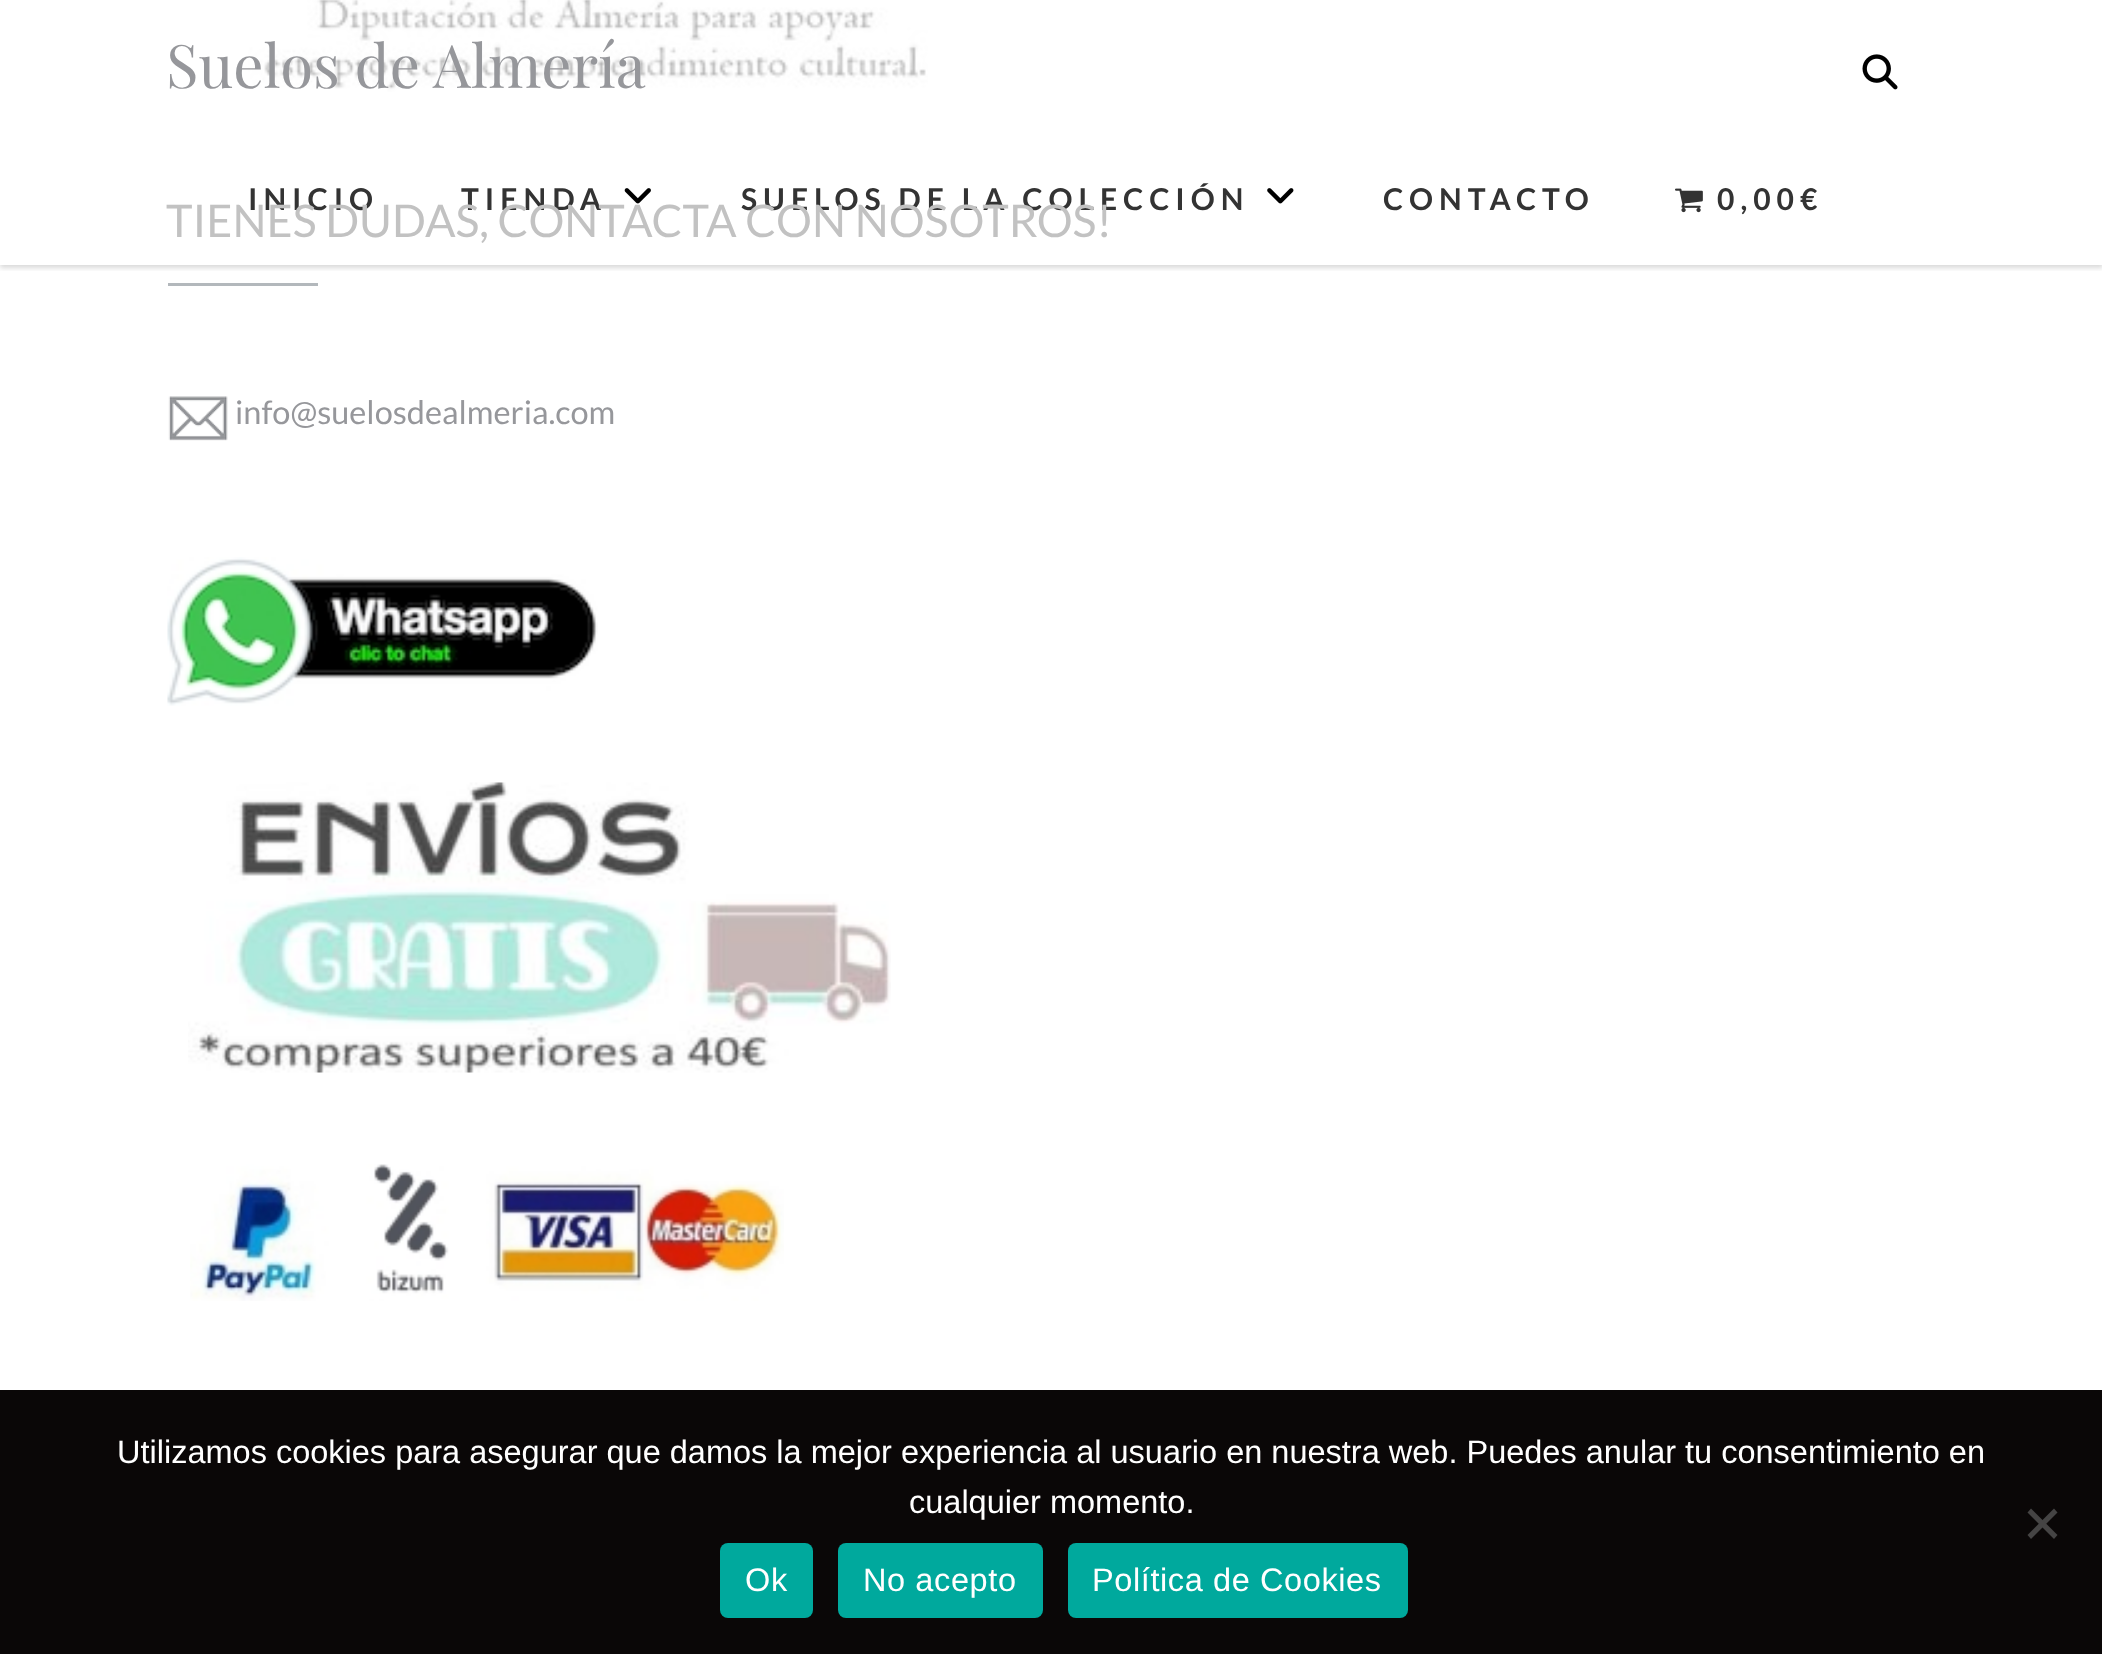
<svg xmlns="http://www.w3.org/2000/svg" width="2102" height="1654">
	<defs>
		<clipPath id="clip1"><rect x="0" y="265" width="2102" height="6" /></clipPath>
	</defs>
	<rect width="100%" height="100%" fill="#FFFFFF" />
	<image x="248" y="0" width="680" height="92" href="assets/img5.png" />
	<g clip-path="url(#clip1)">
		<rect x="0" y="3" width="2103" height="265" fill="#000000" fill-opacity="0.15" filter="blur(2.5px)" />
	</g>
	<text x="166" y="88" font-family="Playfair Display" font-size="60" fill="#96979B">Suelos de Almería</text>
	<image x="1862" y="54" width="36" height="36" href="assets/img1.png" />
	<g font-family="Lato" font-size="30" font-weight="700" letter-spacing="6" fill="#333333">
		<text x="248" y="210">INICIO</text>
		<text x="461" y="210">TIENDA</text>
	</g>
	<image x="624" y="188" width="27" height="16" href="assets/img2.png" />
	<text x="741" y="210" font-family="Lato" font-size="30" font-weight="700" letter-spacing="6" fill="#333333">SUELOS DE LA COLECCIÓN</text>
	<image x="1267" y="188" width="27" height="16" href="assets/img3.png" />
	<text x="1383" y="210" font-family="Lato" font-size="30" font-weight="700" letter-spacing="6" fill="#333333">CONTACTO</text>
	<image x="1675" y="188" width="28" height="25" href="assets/img4.png" />
	<text x="1717" y="210" font-family="Lato" font-size="30" font-weight="700" letter-spacing="6" fill="#333333">0,00€</text>
	<text x="166" y="237" font-family="Lato" font-size="45" fill="#C2C2C2">TIENES DUDAS, CONTACTA CON NOSOTROS!</text>
	<rect x="168" y="283" width="150" height="3" fill="#B3B8BC" />
	<image x="168" y="396" width="60" height="45" href="assets/img6.png" />
	<text x="235" y="424" font-family="Lato" font-size="32.5" fill="#96979B">info@suelosdealmeria.com</text>
	<image x="167" y="557" width="431" height="149" href="assets/img7.png" />
	<image x="188" y="782" width="703" height="291" href="assets/img8.png" />
	<image x="190" y="1164" width="594" height="137" href="assets/img9.png" />
	<rect x="0" y="1390" width="2102" height="264" fill="#0A0707" />
	<g font-family="Liberation Sans" font-size="32.5" fill="#FFFFFF">
		<text x="117" y="1463">Utilizamos cookies para asegurar que damos la mejor experiencia al usuario en nuestra web. Puedes anular tu consentimiento en</text>
		<text x="909" y="1513">cualquier momento.</text>
	</g>
	<path d="M2054 1508.5L2057.5 1512.5L2031 1539L2027.5 1535Z" fill="#454444" />
	<path d="M2027.5 1512.5L2031 1508.5L2057.5 1535L2054 1539Z" fill="#454444" />
	<rect x="720" y="1543" width="93" height="75" rx="8" fill="#00A99D" />
	<text x="745" y="1591" font-family="Liberation Sans" font-size="32.5" letter-spacing="0.6" fill="#FFFFFF">Ok</text>
	<rect x="838" y="1543" width="205" height="75" rx="8" fill="#00A99D" />
	<text x="863" y="1591" font-family="Liberation Sans" font-size="32.5" letter-spacing="0.6" fill="#FFFFFF">No acepto</text>
	<rect x="1068" y="1543" width="340" height="75" rx="8" fill="#00A99D" />
	<text x="1092" y="1591" font-family="Liberation Sans" font-size="32.5" letter-spacing="0.6" fill="#FFFFFF">Política de Cookies</text>
</svg>
